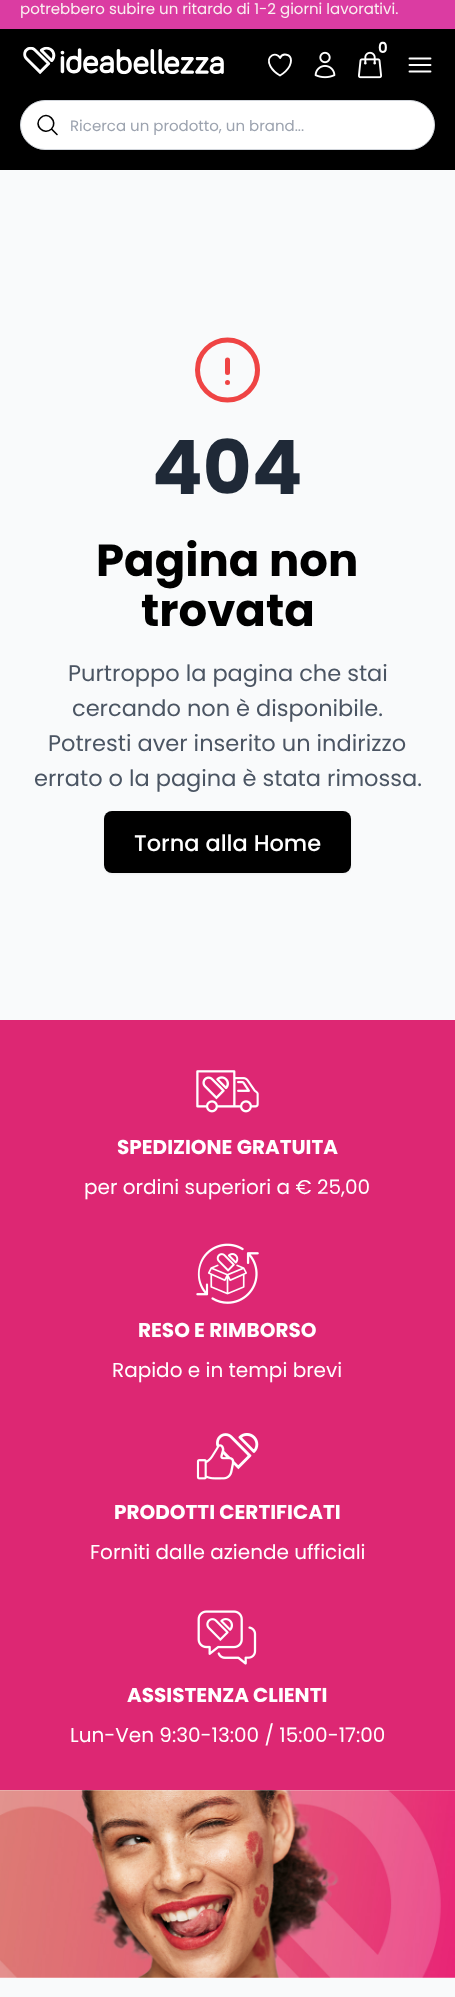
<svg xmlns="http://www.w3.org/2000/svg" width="455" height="1997">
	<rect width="100%" height="100%" fill="#DB3CA2" />
	<text x="20" y="14" font-family="Poppins" font-size="15" fill="#FAF0F0">potrebbero subire un ritardo di 1-2 giorni lavorativi.</text>
	<rect x="0" y="29" width="455" height="141" fill="#000000" />
	<image x="23" y="46" width="201" height="29" href="assets/img1.png" />
	<image x="358" y="51" width="24" height="28" href="assets/img2.png" />
	<text x="378" y="53" font-family="Poppins" font-size="15" font-weight="600" fill="#FFFFFF">0</text>
	<path d="M291 60.5C291 54 282.5 52.5 280 58C277 51 264.5 55.5 270.5 66.5C272.5 70 276.5 73.5 280 75.5C280 75.5 291 69.5 291 60.5Z" fill="none" stroke="#FFFFFF" stroke-width="1.9" stroke-linecap="round" stroke-linejoin="round" />
	<image x="314" y="51" width="22" height="28" href="assets/img3.png" />
	<path d="M409.5 58.5H430.5M409.5 65H430.5M409.5 71.5H430.5" fill="none" stroke="#FFFFFF" stroke-width="1.9" stroke-linecap="round" stroke-linejoin="round" />
	<rect x="20.5" y="100.5" width="414" height="49" rx="24.5" fill="#FFFFFF" stroke="#D1D5DB" />
	<path d="M57 134.5L51.5 129M51.5 129C58.5 121.5 47.5 110.5 40.5 118C33 125 44 136 51.5 129Z" fill="none" stroke="#000000" stroke-width="1.6" stroke-linecap="round" stroke-linejoin="round" />
	<text x="70" y="131" font-family="Poppins" font-size="15" fill="#9CA3AF">Ricerca un prodotto, un brand...</text>
	<rect x="0" y="170" width="455" height="850" fill="#F9FAFB" />
	<path d="M227.5 360V372.5M257.5 370C257.5 386.5 244 400 227.5 400C211 400 197.5 386.5 197.5 370C197.5 353.5 211 340 227.5 340C244 340 257.5 353.5 257.5 370ZM227.5 382.5H227.5Z" fill="none" stroke="#EF4444" stroke-width="5" stroke-linecap="round" stroke-linejoin="round" />
	<text x="152" y="494" font-family="Poppins" font-size="75" font-weight="700" fill="#1F2937">404</text>
	<g font-family="Poppins" font-size="45" font-weight="700" fill="#000000">
		<text x="96" y="576">Pagina non</text>
		<text x="141" y="626">trovata</text>
	</g>
	<g font-family="Poppins" font-size="22.5" fill="#4B5563">
		<text x="68" y="681">Purtroppo la pagina che stai</text>
		<text x="72" y="716">cercando non è disponibile.</text>
		<text x="48" y="751">Potresti aver inserito un indirizzo</text>
		<text x="34" y="786">errato o la pagina è stata rimossa.</text>
	</g>
	<rect x="104" y="813" width="247" height="61" rx="8" fill="#000000" fill-opacity="0.05" filter="blur(1px)" />
	<rect x="104" y="811" width="247" height="62" rx="8" fill="#000000" />
	<text x="134" y="851" font-family="Poppins" font-size="22.5" font-weight="500" fill="#FFFFFF">Torna alla Home</text>
	<rect x="0" y="1020" width="455" height="770" fill="#DD2773" />
	<image x="196" y="1070" width="63" height="43" href="assets/img4.png" />
	<text x="117" y="1154" font-family="Poppins" font-size="20" font-weight="700" fill="#FFFFFF">SPEDIZIONE GRATUITA</text>
	<text x="84" y="1194" font-family="Poppins" font-size="20" fill="#FFFFFF">per ordini superiori a € 25,00</text>
	<image x="196" y="1243" width="63" height="61" href="assets/img5.png" />
	<text x="138" y="1337" font-family="Poppins" font-size="20" font-weight="700" fill="#FFFFFF">RESO E RIMBORSO</text>
	<text x="112" y="1377" font-family="Poppins" font-size="20" fill="#FFFFFF">Rapido e in tempi brevi</text>
	<image x="196" y="1433" width="63" height="47" href="assets/img6.png" />
	<text x="114" y="1519" font-family="Poppins" font-size="20" font-weight="700" fill="#FFFFFF">PRODOTTI CERTIFICATI</text>
	<text x="90" y="1559" font-family="Poppins" font-size="20" fill="#FFFFFF">Forniti dalle aziende ufficiali</text>
	<image x="197" y="1610" width="60" height="55" href="assets/img7.png" />
	<text x="127" y="1702" font-family="Poppins" font-size="20" font-weight="700" fill="#FFFFFF">ASSISTENZA CLIENTI</text>
	<text x="70" y="1742" font-family="Poppins" font-size="20" fill="#FFFFFF">Lun-Ven 9:30-13:00 / 15:00-17:00</text>
	<rect x="0" y="1790" width="455" height="207" fill="#F9FAFB" />
	<image x="0" y="1790" width="455" height="188" href="assets/img8.png" />
</svg>
